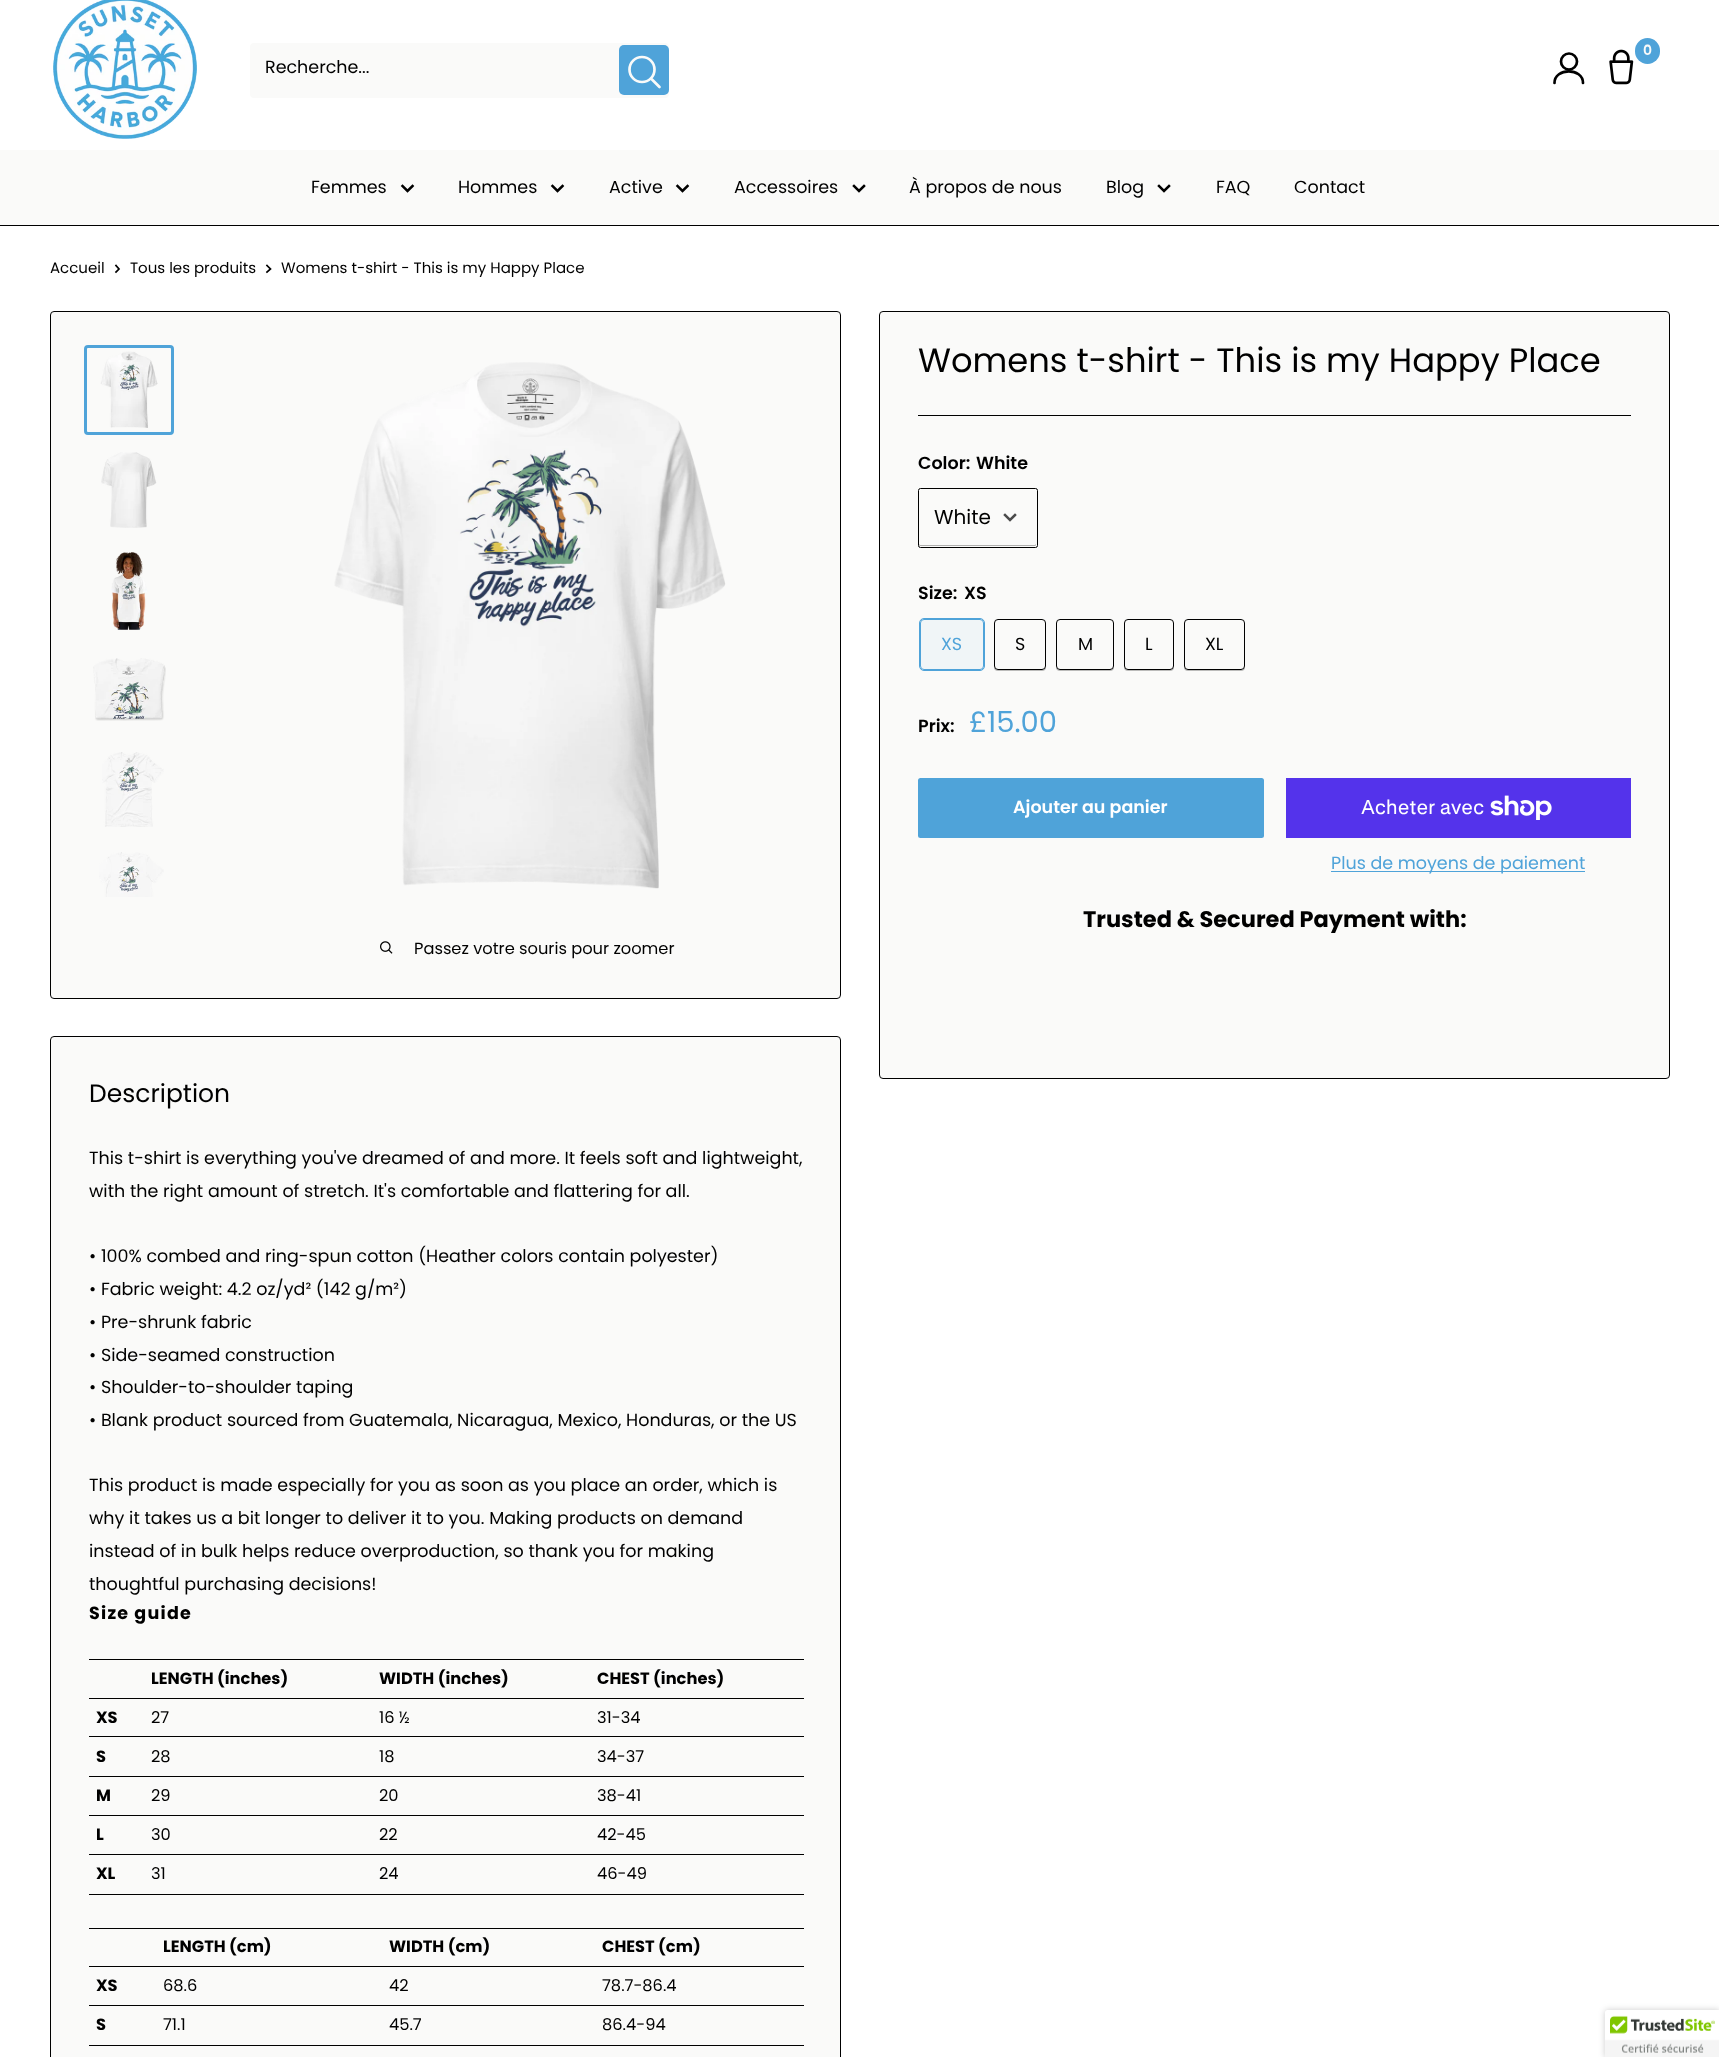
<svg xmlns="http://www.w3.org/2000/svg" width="1719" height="2057">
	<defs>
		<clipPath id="clip1"><path d="M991 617H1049V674H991ZM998 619H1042C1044 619 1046 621 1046 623V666C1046 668 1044 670 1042 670H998C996 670 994 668 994 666V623C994 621 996 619 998 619Z" clip-rule="evenodd" /></clipPath>
		<clipPath id="clip2"><path d="M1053 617H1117V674H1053ZM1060 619H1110C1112 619 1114 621 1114 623V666C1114 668 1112 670 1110 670H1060C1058 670 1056 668 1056 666V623C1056 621 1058 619 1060 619Z" clip-rule="evenodd" /></clipPath>
		<clipPath id="clip3"><path d="M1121 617H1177V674H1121ZM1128 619H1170C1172 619 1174 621 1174 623V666C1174 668 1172 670 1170 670H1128C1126 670 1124 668 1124 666V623C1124 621 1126 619 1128 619Z" clip-rule="evenodd" /></clipPath>
		<clipPath id="clip4"><path d="M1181 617H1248V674H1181ZM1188 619H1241C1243 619 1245 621 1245 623V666C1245 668 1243 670 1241 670H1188C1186 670 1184 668 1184 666V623C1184 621 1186 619 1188 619Z" clip-rule="evenodd" /></clipPath>
	</defs>
	<rect width="100%" height="100%" fill="#FFFFFF" />
	<image x="53" y="0" width="144" height="139" href="assets/img1.png" />
	<image x="1609" y="49" width="25" height="36" href="assets/img2.png" />
	<rect x="1635" y="38" width="25" height="26" rx="12.5" fill="#4FA3D9" />
	<text x="1643" y="55" font-family="Poppins" font-size="14" font-weight="600" fill="#FAFAF9">0</text>
	<path d="M1554.5 83C1554.5 67.5 1583 67.5 1583 83" fill="none" stroke="#000000" stroke-width="2.7" stroke-linecap="round" stroke-linejoin="round" />
	<circle cx="1569" cy="61.5" r="8" fill="none" stroke="#000000" stroke-width="2.7" />
	<rect x="250" y="43" width="419" height="55" rx="4" fill="#FAFAF9" />
	<text x="265" y="73" font-family="Poppins" font-size="17.5" fill="#000000">Recherche...</text>
	<rect x="619" y="45" width="50" height="50" rx="5" fill="#4FA3D9" />
	<circle cx="642" cy="69.5" r="12.5" fill="none" stroke="#FAFAF9" stroke-width="2.7" />
	<path d="M659.5 87L652 79.5" fill="none" stroke="#FAFAF9" stroke-width="2.7" stroke-linecap="round" stroke-linejoin="round" />
	<rect x="0" y="150" width="1719" height="75" fill="#FAFAF9" />
	<rect x="0" y="225" width="1719" height="1" fill="#000000" />
	<text x="311" y="193" font-family="Poppins" font-size="17.5" fill="#000000">Femmes</text>
	<path d="M412.5 186L407.5 191L402.5 186" fill="none" stroke="#000000" stroke-width="2.5" stroke-linecap="square" />
	<text x="458" y="193" font-family="Poppins" font-size="17.5" fill="#000000">Hommes</text>
	<path d="M562.5 186L557.5 191L552.5 186" fill="none" stroke="#000000" stroke-width="2.5" stroke-linecap="square" />
	<text x="609" y="193" font-family="Poppins" font-size="17.5" fill="#000000">Active</text>
	<path d="M687.5 186L682.5 191L677.5 186" fill="none" stroke="#000000" stroke-width="2.5" stroke-linecap="square" />
	<text x="734" y="193" font-family="Poppins" font-size="17.5" fill="#000000">Accessoires</text>
	<path d="M864 186L859 191L854 186" fill="none" stroke="#000000" stroke-width="2.5" stroke-linecap="square" />
	<g font-family="Poppins" font-size="17.5" fill="#000000">
		<text x="909" y="193">À propos de nous</text>
		<text x="1106" y="193">Blog</text>
	</g>
	<path d="M1169 186L1164 191L1159 186" fill="none" stroke="#000000" stroke-width="2.5" stroke-linecap="square" />
	<g font-family="Poppins" font-size="17.5" fill="#000000">
		<text x="1216" y="193">FAQ</text>
		<text x="1294" y="193">Contact</text>
	</g>
	<text x="50" y="273" font-family="Poppins" font-size="15" fill="#000000">Accueil</text>
	<path d="M116 265.5L119 269L116 272" fill="none" stroke="#000000" stroke-width="1.7" stroke-linecap="square" />
	<text x="130" y="273" font-family="Poppins" font-size="15" fill="#000000">Tous les produits</text>
	<path d="M267 265.5L270.5 269L267 272" fill="none" stroke="#000000" stroke-width="1.7" stroke-linecap="square" />
	<text x="281" y="273" font-family="Poppins" font-size="15" fill="#000000">Womens t-shirt - This is my Happy Place</text>
	<rect x="879.5" y="311.5" width="790" height="767" rx="3.5" fill="#FAFAF9" stroke="#000000" />
	<text x="918" y="372" font-family="Poppins" font-size="33.75" fill="#000000">Womens t-shirt - This is my Happy Place</text>
	<rect x="918" y="415" width="713" height="1" fill="#000000" />
	<g font-family="Poppins" font-size="17.5" font-weight="600" fill="#000000">
		<text x="918" y="469">Color:</text>
		<text x="976" y="469">White</text>
	</g>
	<path d="M919 544C919 545 919 546 920 546H1035C1036 546 1036 545 1036 544L1035 545H920Z" fill="#AFAFAE" />
	<rect x="918.5" y="488.5" width="119" height="59" rx="2" fill="none" stroke="#000000" />
	<text x="934" y="524" font-family="Poppins" font-size="20" fill="#000000">White</text>
	<path d="M1015 515L1010 520L1005 515" fill="none" stroke="#4B4B4B" stroke-width="2.5" stroke-linecap="square" />
	<g font-family="Poppins" font-size="17.5" font-weight="600" fill="#000000">
		<text x="918" y="599">Size:</text>
		<text x="964" y="599">XS</text>
	</g>
	<rect x="919.5" y="618.5" width="65" height="52" rx="4.5" fill="none" stroke="#4FA3D9" />
	<rect x="920" y="619" width="64" height="51" fill="#4FA3D9" fill-opacity="0.06" />
	<rect x="920.5" y="619.5" width="63" height="50" rx="3.5" fill="none" stroke="#4FA3D9" />
	<text x="941" y="650" font-family="Poppins" font-size="17.5" fill="#4FA3D9">XS</text>
	<g clip-path="url(#clip1)">
		<rect x="994" y="620" width="52" height="51" rx="4" fill="#000000" fill-opacity="0.25" filter="blur(0.5px)" />
	</g>
	<rect x="994.5" y="619.5" width="51" height="50" rx="3.5" fill="none" stroke="#000000" />
	<text x="1015" y="650" font-family="Poppins" font-size="17.5" fill="#000000">S</text>
	<g clip-path="url(#clip2)">
		<rect x="1056" y="620" width="58" height="51" rx="4" fill="#000000" fill-opacity="0.25" filter="blur(0.5px)" />
	</g>
	<rect x="1056.5" y="619.5" width="57" height="50" rx="3.5" fill="none" stroke="#000000" />
	<text x="1078" y="650" font-family="Poppins" font-size="17.5" fill="#000000">M</text>
	<g clip-path="url(#clip3)">
		<rect x="1124" y="620" width="50" height="51" rx="4" fill="#000000" fill-opacity="0.25" filter="blur(0.5px)" />
	</g>
	<rect x="1124.5" y="619.5" width="49" height="50" rx="3.5" fill="none" stroke="#000000" />
	<text x="1145" y="650" font-family="Poppins" font-size="17.5" fill="#000000">L</text>
	<g clip-path="url(#clip4)">
		<rect x="1184" y="620" width="61" height="51" rx="4" fill="#000000" fill-opacity="0.25" filter="blur(0.5px)" />
	</g>
	<rect x="1184.5" y="619.5" width="60" height="50" rx="3.5" fill="none" stroke="#000000" />
	<text x="1205" y="650" font-family="Poppins" font-size="17.5" fill="#000000">XL</text>
	<text x="918" y="732" font-family="Poppins" font-size="17.5" font-weight="600" fill="#000000">Prix:</text>
	<text x="969" y="732" font-family="Poppins" font-size="29" fill="#4FA3D9">£15.00</text>
	<rect x="918" y="778" width="346" height="60" rx="2.5" fill="#4FA3D9" />
	<text x="1013" y="813" font-family="Poppins" font-size="17.5" font-weight="600" fill="#FFFFFF">Ajouter au panier</text>
	<rect x="1286" y="778" width="345" height="60" fill="#5433EB" />
	<text x="1361" y="814" font-family="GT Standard" font-size="20" fill="#FFFFFF">Acheter avec</text>
	<image x="1490" y="795" width="62" height="25" href="assets/img3.png" />
	<rect x="1331" y="871" width="254" height="1" fill="#4FA3D9" />
	<text x="1331" y="869" font-family="Poppins" font-size="17.5" fill="#4FA3D9">Plus de moyens de paiement</text>
	<text x="1083" y="927" font-family="Poppins" font-size="22.5" font-weight="700" fill="#000000">Trusted &amp; Secured Payment with:</text>
	<rect x="50.5" y="311.5" width="790" height="687" rx="3.5" fill="#FAFAF9" stroke="#000000" />
	<rect x="85.5" y="346.5" width="87" height="87" rx="2.5" fill="none" stroke="#4FA3D9" stroke-width="3" />
	<image x="100" y="351" width="58" height="77" href="assets/img4.png" />
	<image x="101" y="452" width="56" height="76" href="assets/img5.png" />
	<image x="111" y="552" width="36" height="78" href="assets/img6.png" />
	<image x="93" y="658" width="73" height="63" href="assets/img7.png" />
	<image x="102" y="752" width="62" height="75" href="assets/img8.png" />
	<image x="99" y="852" width="65" height="45" href="assets/img9.png" />
	<image x="334" y="362" width="392" height="527" href="assets/img10.png" />
	<image x="380" y="941" width="13" height="13" href="assets/img11.png" />
	<text x="414" y="954" font-family="Poppins" font-size="16.25" fill="#000000">Passez votre souris pour zoomer</text>
	<rect x="50.5" y="1036.5" width="790" height="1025" rx="3.5" fill="#FAFAF9" stroke="#000000" />
	<text x="89" y="1102" font-family="Poppins" font-size="25" fill="#000000">Description</text>
	<g font-family="Poppins" font-size="17.5" fill="#000000">
		<text x="89" y="1164">This t-shirt is everything you've dreamed of and more. It feels soft and lightweight,</text>
		<text x="89" y="1197">with the right amount of stretch. It's comfortable and flattering for all.</text>
		<text x="89" y="1262">• 100% combed and ring-spun cotton (Heather colors contain polyester)</text>
		<text x="89" y="1295">• Fabric weight: 4.2 oz/yd² (142 g/m²)</text>
		<text x="89" y="1328">• Pre-shrunk fabric</text>
		<text x="89" y="1361">• Side-seamed construction</text>
		<text x="89" y="1393">• Shoulder-to-shoulder taping</text>
		<text x="89" y="1426">• Blank product sourced from Guatemala, Nicaragua, Mexico, Honduras, or the US</text>
		<text x="89" y="1491">This product is made especially for you as soon as you place an order, which is</text>
		<text x="89" y="1524">why it takes us a bit longer to deliver it to you. Making products on demand</text>
		<text x="89" y="1557">instead of in bulk helps reduce overproduction, so thank you for making</text>
		<text x="89" y="1590">thoughtful purchasing decisions!</text>
	</g>
	<text x="89" y="1619" font-family="Poppins" font-size="17.5" font-weight="700" letter-spacing="1.25" fill="#000000">Size guide</text>
	<rect x="89" y="1659" width="715" height="1" fill="#000000" />
	<g font-family="Poppins" font-size="16.25" font-weight="700" fill="#000000">
		<text x="151" y="1684">LENGTH (inches)</text>
		<text x="379" y="1684">WIDTH (inches)</text>
		<text x="597" y="1684">CHEST (inches)</text>
	</g>
	<rect x="89" y="1698" width="715" height="1" fill="#000000" />
	<text x="96" y="1723" font-family="Poppins" font-size="16.25" font-weight="700" fill="#000000">XS</text>
	<g font-family="Poppins" font-size="16.25" fill="#000000">
		<text x="151" y="1723">27</text>
		<text x="379" y="1723">16 ½</text>
		<text x="597" y="1723">31-34</text>
	</g>
	<rect x="89" y="1736" width="715" height="1" fill="#000000" />
	<text x="96" y="1762" font-family="Poppins" font-size="16.25" font-weight="700" fill="#000000">S</text>
	<g font-family="Poppins" font-size="16.25" fill="#000000">
		<text x="151" y="1762">28</text>
		<text x="379" y="1762">18</text>
		<text x="597" y="1762">34-37</text>
	</g>
	<rect x="89" y="1776" width="715" height="1" fill="#000000" />
	<text x="96" y="1801" font-family="Poppins" font-size="16.25" font-weight="700" fill="#000000">M</text>
	<g font-family="Poppins" font-size="16.25" fill="#000000">
		<text x="151" y="1801">29</text>
		<text x="379" y="1801">20</text>
		<text x="597" y="1801">38-41</text>
	</g>
	<rect x="89" y="1815" width="715" height="1" fill="#000000" />
	<text x="96" y="1840" font-family="Poppins" font-size="16.25" font-weight="700" fill="#000000">L</text>
	<g font-family="Poppins" font-size="16.25" fill="#000000">
		<text x="151" y="1840">30</text>
		<text x="379" y="1840">22</text>
		<text x="597" y="1840">42-45</text>
	</g>
	<rect x="89" y="1854" width="715" height="1" fill="#000000" />
	<rect x="89" y="1894" width="715" height="1" fill="#000000" />
	<text x="96" y="1879" font-family="Poppins" font-size="16.25" font-weight="700" fill="#000000">XL</text>
	<g font-family="Poppins" font-size="16.25" fill="#000000">
		<text x="151" y="1879">31</text>
		<text x="379" y="1879">24</text>
		<text x="597" y="1879">46-49</text>
	</g>
	<rect x="89" y="1928" width="715" height="1" fill="#000000" />
	<g font-family="Poppins" font-size="16.25" font-weight="700" fill="#000000">
		<text x="163" y="1952">LENGTH (cm)</text>
		<text x="389" y="1952">WIDTH (cm)</text>
		<text x="602" y="1952">CHEST (cm)</text>
	</g>
	<rect x="89" y="1966" width="715" height="1" fill="#000000" />
	<text x="96" y="1991" font-family="Poppins" font-size="16.25" font-weight="700" fill="#000000">XS</text>
	<g font-family="Poppins" font-size="16.25" fill="#000000">
		<text x="163" y="1991">68.6</text>
		<text x="389" y="1991">42</text>
		<text x="602" y="1991">78.7-86.4</text>
	</g>
	<rect x="89" y="2005" width="715" height="1" fill="#000000" />
	<text x="96" y="2030" font-family="Poppins" font-size="16.25" font-weight="700" fill="#000000">S</text>
	<g font-family="Poppins" font-size="16.25" fill="#000000">
		<text x="163" y="2030">71.1</text>
		<text x="389" y="2030">45.7</text>
		<text x="602" y="2030">86.4-94</text>
	</g>
	<rect x="89" y="2045" width="715" height="1" fill="#000000" />
	<rect x="1605" y="2010" width="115" height="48" rx="2.5" fill="#000000" fill-opacity="0.2" filter="blur(3px)" />
	<path d="M1607.5 2010H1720V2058H1605V2012.5C1605 2011 1606 2010 1607.5 2010Z" fill="#FFFFFF" />
	<image x="1605" y="2015" width="114" height="42" href="assets/img12.png" />
</svg>
